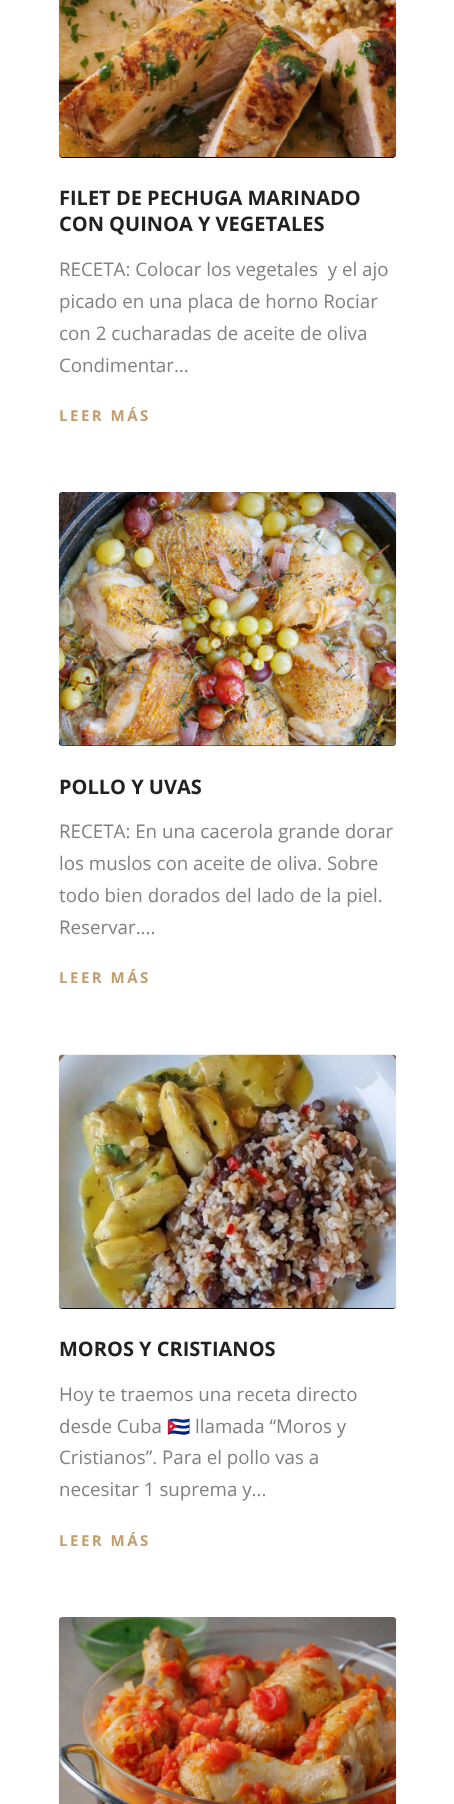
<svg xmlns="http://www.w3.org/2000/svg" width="454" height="1804">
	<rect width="100%" height="100%" fill="#FFFFFF" />
	<rect x="59" y="-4" width="337" height="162" rx="4" fill="#000000" />
	<image x="58" y="0" width="339" height="157" href="assets/img1.png" />
	<text x="129" y="29" font-family="Open Sans" font-size="20" font-weight="700" fill="#BC8C51">a</text>
	<text x="110" y="91" font-family="Open Sans" font-size="20" font-weight="700" fill="#8F5A24">English</text>
	<g font-family="Open Sans" font-size="20" font-weight="700" fill="#212121">
		<text x="59" y="205">FILET DE PECHUGA MARINADO</text>
		<text x="59" y="231">CON QUINOA Y VEGETALES</text>
	</g>
	<g font-family="Open Sans" font-size="18.75" fill="#808080">
		<text x="59" y="276" xml:space="preserve">RECETA: Colocar los vegetales  y el ajo</text>
		<text x="59" y="308">picado en una placa de horno Rociar</text>
		<text x="59" y="340">con 2 cucharadas de aceite de oliva</text>
		<text x="59" y="372">Condimentar...</text>
	</g>
	<text x="59" y="421" font-family="Open Sans" font-size="15" font-weight="700" letter-spacing="2.5" fill="#C39E6D">LEER MÁS</text>
	<rect x="59" y="493" width="337" height="253" rx="4" fill="#000000" />
	<image x="58" y="492" width="339" height="254" href="assets/img2.png" />
	<text x="59" y="794" font-family="Open Sans" font-size="20" font-weight="700" fill="#212121">POLLO Y UVAS</text>
	<g font-family="Open Sans" font-size="18.75" fill="#808080">
		<text x="59" y="838">RECETA: En una cacerola grande dorar</text>
		<text x="59" y="870">los muslos con aceite de oliva. Sobre</text>
		<text x="59" y="902">todo bien dorados del lado de la piel.</text>
		<text x="59" y="934">Reservar....</text>
	</g>
	<text x="59" y="983" font-family="Open Sans" font-size="15" font-weight="700" letter-spacing="2.5" fill="#C39E6D">LEER MÁS</text>
	<rect x="59" y="1055" width="337" height="254" rx="4" fill="#000000" />
	<image x="58" y="1054" width="339" height="255" href="assets/img3.png" />
	<text x="59" y="1356" font-family="Open Sans" font-size="20" font-weight="700" fill="#212121">MOROS Y CRISTIANOS</text>
	<g font-family="Open Sans" font-size="18.75" fill="#808080">
		<text x="59" y="1401">Hoy te traemos una receta directo</text>
		<text x="59" y="1433">desde Cuba</text>
	</g>
	<text x="167" y="1433" font-family="Noto Color Emoji" font-size="18.75" fill="#808080">🇨🇺</text>
	<g font-family="Open Sans" font-size="18.75" fill="#808080">
		<text x="195" y="1433">llamada “Moros y</text>
		<text x="59" y="1464">Cristianos”. Para el pollo vas a</text>
		<text x="59" y="1496">necesitar 1 suprema y...</text>
	</g>
	<text x="59" y="1546" font-family="Open Sans" font-size="15" font-weight="700" letter-spacing="2.5" fill="#C39E6D">LEER MÁS</text>
	<image x="58" y="1617" width="339" height="187" href="assets/img4.png" />
</svg>
